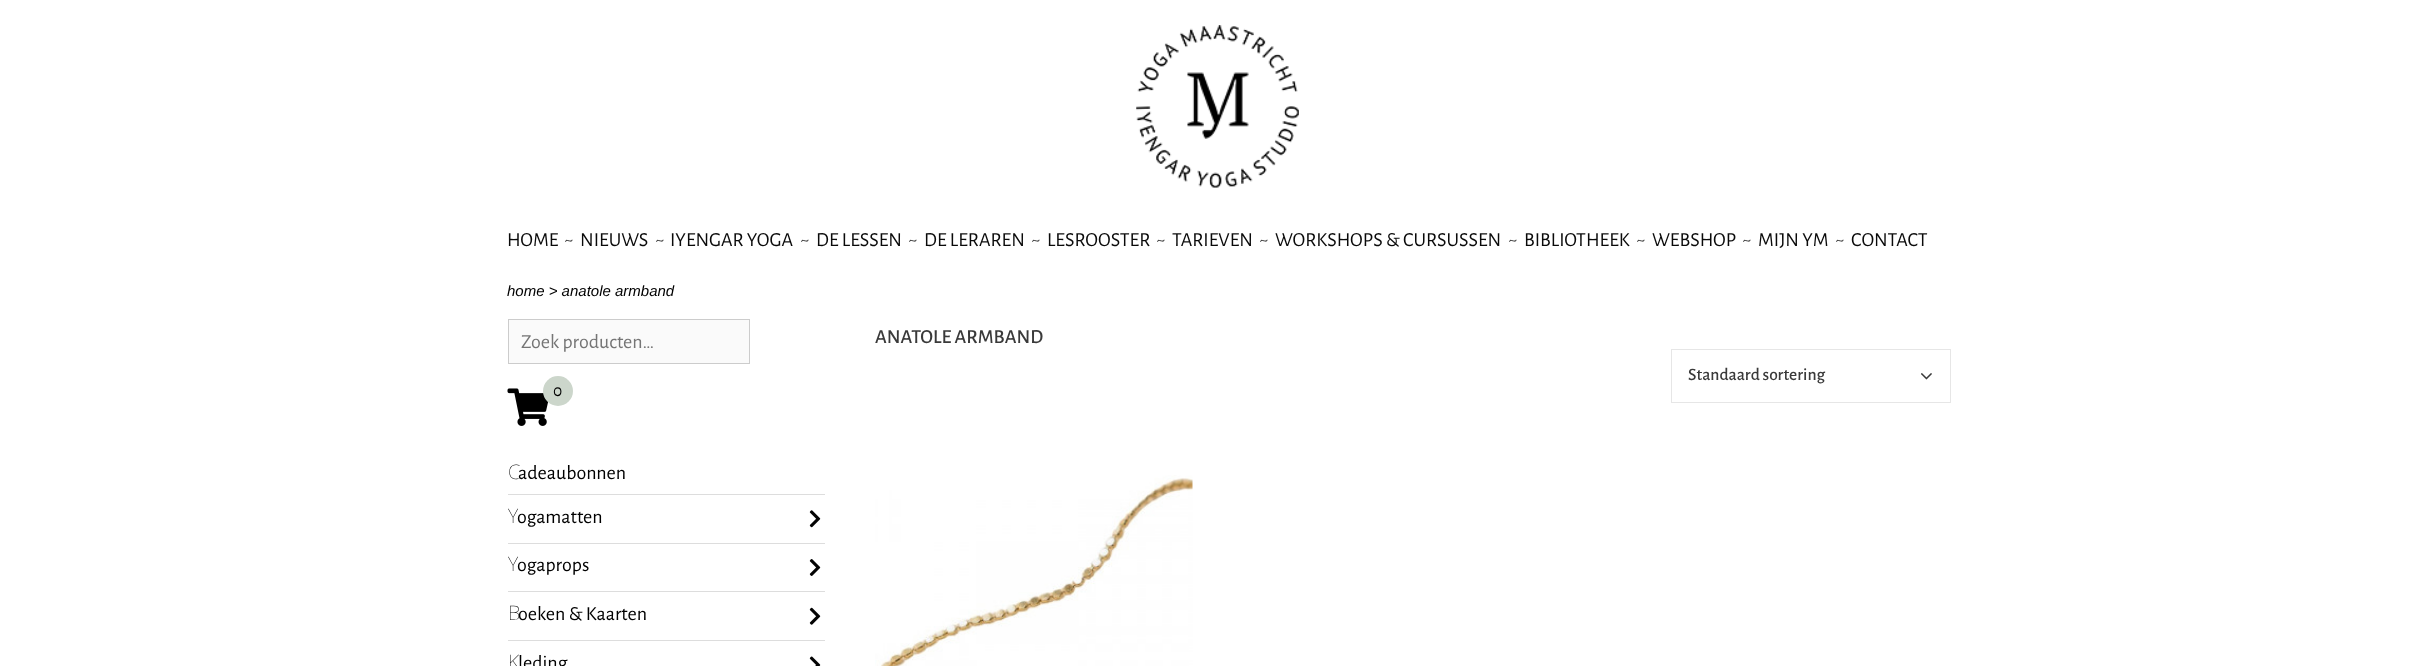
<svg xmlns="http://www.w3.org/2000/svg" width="2433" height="666">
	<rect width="100%" height="100%" fill="#FFFFFF" />
	<image x="1136" y="25" width="163" height="163" href="assets/img1.png" />
	<text x="507" y="246" font-family="Alegreya Sans" font-size="20" fill="#0A0A0A">HOME</text>
	<text x="564" y="246" font-family="Alegreya Sans" font-size="20" fill="#3A3A3A">~</text>
	<text x="580" y="246" font-family="Alegreya Sans" font-size="20" fill="#0A0A0A">NIEUWS</text>
	<text x="655" y="246" font-family="Alegreya Sans" font-size="20" fill="#3A3A3A">~</text>
	<text x="670" y="246" font-family="Alegreya Sans" font-size="20" fill="#0A0A0A">IYENGAR YOGA</text>
	<text x="800" y="246" font-family="Alegreya Sans" font-size="20" fill="#3A3A3A">~</text>
	<text x="816" y="246" font-family="Alegreya Sans" font-size="20" fill="#0A0A0A">DE LESSEN</text>
	<text x="908" y="246" font-family="Alegreya Sans" font-size="20" fill="#3A3A3A">~</text>
	<text x="924" y="246" font-family="Alegreya Sans" font-size="20" fill="#0A0A0A">DE LERAREN</text>
	<text x="1031" y="246" font-family="Alegreya Sans" font-size="20" fill="#3A3A3A">~</text>
	<text x="1047" y="246" font-family="Alegreya Sans" font-size="20" fill="#0A0A0A">LESROOSTER</text>
	<text x="1156" y="246" font-family="Alegreya Sans" font-size="20" fill="#3A3A3A">~</text>
	<text x="1172" y="246" font-family="Alegreya Sans" font-size="20" fill="#0A0A0A">TARIEVEN</text>
	<text x="1259" y="246" font-family="Alegreya Sans" font-size="20" fill="#3A3A3A">~</text>
	<text x="1275" y="246" font-family="Alegreya Sans" font-size="20" fill="#0A0A0A">WORKSHOPS &amp; CURSUSSEN</text>
	<text x="1508" y="246" font-family="Alegreya Sans" font-size="20" fill="#3A3A3A">~</text>
	<text x="1524" y="246" font-family="Alegreya Sans" font-size="20" fill="#0A0A0A">BIBLIOTHEEK</text>
	<text x="1636" y="246" font-family="Alegreya Sans" font-size="20" fill="#3A3A3A">~</text>
	<text x="1652" y="246" font-family="Alegreya Sans" font-size="20" fill="#0A0A0A">WEBSHOP</text>
	<text x="1742" y="246" font-family="Alegreya Sans" font-size="20" fill="#3A3A3A">~</text>
	<text x="1758" y="246" font-family="Alegreya Sans" font-size="20" fill="#0A0A0A">MIJN YM</text>
	<text x="1835" y="246" font-family="Alegreya Sans" font-size="20" fill="#3A3A3A">~</text>
	<text x="1851" y="246" font-family="Alegreya Sans" font-size="20" fill="#0A0A0A">CONTACT</text>
	<text x="507" y="296" font-family="Liberation Sans" font-size="15" font-style="italic" fill="#000000">home &gt; anatole armband</text>
	<rect x="508.5" y="319.5" width="241" height="44" fill="#FAFAFA" stroke="#CCCCCC" />
	<text x="521" y="348" font-family="Alegreya Sans" font-size="20" fill="#757575">Zoek producten…</text>
	<image x="507" y="388" width="41" height="38" href="assets/img2.png" />
	<circle cx="558" cy="391" r="15" fill="#CCD6CB" />
	<text x="553" y="396" font-family="Alegreya Sans" font-size="17.5" fill="#000000">0</text>
	<rect x="508" y="494" width="317" height="1" fill="#DDDDDD" />
	<text x="508" y="479" font-family="Noto Sans" font-size="20" font-weight="100" fill="#000000">C</text>
	<text x="518" y="479" font-family="Alegreya Sans" font-size="20" fill="#000000">adeaubonnen</text>
	<rect x="508" y="543" width="317" height="1" fill="#DDDDDD" />
	<text x="508" y="523" font-family="Noto Sans" font-size="20" font-weight="100" fill="#000000">Y</text>
	<text x="517" y="523" font-family="Alegreya Sans" font-size="20" fill="#000000">ogamatten</text>
	<image x="809" y="510" width="12" height="18" href="assets/img3.png" />
	<rect x="508" y="591" width="317" height="1" fill="#DDDDDD" />
	<text x="508" y="571" font-family="Noto Sans" font-size="20" font-weight="100" fill="#000000">Y</text>
	<text x="517" y="571" font-family="Alegreya Sans" font-size="20" fill="#000000">ogaprops</text>
	<image x="809" y="559" width="12" height="17" href="assets/img4.png" />
	<rect x="508" y="640" width="317" height="1" fill="#DDDDDD" />
	<text x="508" y="620" font-family="Noto Sans" font-size="20" font-weight="100" fill="#000000">B</text>
	<text x="518" y="620" font-family="Alegreya Sans" font-size="20" fill="#000000">oeken &amp; Kaarten</text>
	<image x="809" y="607" width="12" height="18" href="assets/img5.png" />
	<text x="508" y="669" font-family="Noto Sans" font-size="20" font-weight="100" fill="#000000">K</text>
	<text x="518" y="669" font-family="Alegreya Sans" font-size="20" fill="#000000">leding</text>
	<image x="809" y="656" width="12" height="10" href="assets/img6.png" />
	<text x="875" y="343" font-family="Alegreya Sans" font-size="20" font-weight="500" fill="#3A3A3A">ANATOLE ARMBAND</text>
	<rect x="1671.5" y="349.5" width="279" height="53" fill="none" stroke="#E6E6E6" />
	<text x="1688" y="380" font-family="Alegreya Sans" font-size="17.5" font-weight="500" fill="#3A3A3A">Standaard sortering</text>
	<image x="1921" y="373" width="11" height="7" href="assets/img7.png" />
	<image x="875" y="475" width="318" height="191" href="assets/img8.png" />
</svg>
